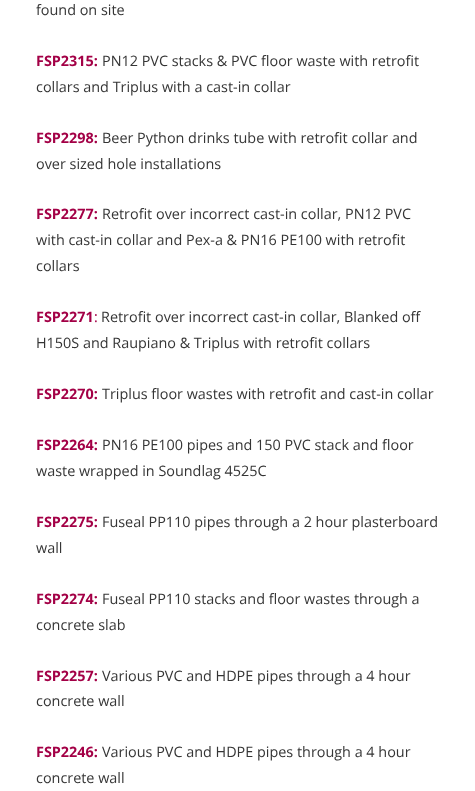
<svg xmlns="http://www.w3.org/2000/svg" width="475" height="791">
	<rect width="100%" height="100%" fill="#FFFFFF" />
	<text x="36" y="15" font-family="Open Sans" font-size="14.4" fill="#353535">found on site</text>
	<text x="36" y="66" font-family="Open Sans" font-size="14.4" font-weight="700" fill="#A30046">FSP2315:</text>
	<g font-family="Open Sans" font-size="14.4" fill="#353535">
		<text x="102" y="66">PN12 PVC stacks &amp; PVC floor waste with retrofit</text>
		<text x="36" y="92">collars and Triplus with a cast-in collar</text>
	</g>
	<text x="36" y="143" font-family="Open Sans" font-size="14.4" font-weight="700" fill="#A30046">FSP2298:</text>
	<g font-family="Open Sans" font-size="14.4" fill="#353535">
		<text x="102" y="143">Beer Python drinks tube with retrofit collar and</text>
		<text x="36" y="169">over sized hole installations</text>
	</g>
	<text x="36" y="219" font-family="Open Sans" font-size="14.4" font-weight="700" fill="#A30046">FSP2277:</text>
	<g font-family="Open Sans" font-size="14.4" fill="#353535">
		<text x="102" y="219">Retrofit over incorrect cast-in collar, PN12 PVC</text>
		<text x="36" y="245">with cast-in collar and Pex-a &amp; PN16 PE100 with retrofit</text>
		<text x="36" y="271">collars</text>
	</g>
	<text x="36" y="322" font-family="Open Sans" font-size="14.4" font-weight="700" fill="#A30046">FSP2271</text>
	<text x="94" y="322" font-family="Open Sans" font-size="14.4" fill="#A30046">:</text>
	<g font-family="Open Sans" font-size="14.4" fill="#353535">
		<text x="101" y="322">Retrofit over incorrect cast-in collar, Blanked off</text>
		<text x="36" y="348">H150S and Raupiano &amp; Triplus with retrofit collars</text>
	</g>
	<text x="36" y="399" font-family="Open Sans" font-size="14.4" font-weight="700" fill="#A30046">FSP2270:</text>
	<text x="102" y="399" font-family="Open Sans" font-size="14.4" fill="#353535">Triplus floor wastes with retrofit and cast-in collar</text>
	<text x="36" y="450" font-family="Open Sans" font-size="14.4" font-weight="700" fill="#A30046">FSP2264:</text>
	<g font-family="Open Sans" font-size="14.4" fill="#353535">
		<text x="102" y="450">PN16 PE100 pipes and 150 PVC stack and floor</text>
		<text x="36" y="476">waste wrapped in Soundlag 4525C</text>
	</g>
	<text x="36" y="527" font-family="Open Sans" font-size="14.4" font-weight="700" fill="#A30046">FSP2275:</text>
	<g font-family="Open Sans" font-size="14.4" fill="#353535">
		<text x="102" y="527">Fuseal PP110 pipes through a 2 hour plasterboard</text>
		<text x="36" y="553">wall</text>
	</g>
	<text x="36" y="604" font-family="Open Sans" font-size="14.4" font-weight="700" fill="#A30046">FSP2274:</text>
	<g font-family="Open Sans" font-size="14.4" fill="#353535">
		<text x="102" y="604">Fuseal PP110 stacks and floor wastes through a</text>
		<text x="36" y="630">concrete slab</text>
	</g>
	<text x="36" y="681" font-family="Open Sans" font-size="14.4" font-weight="700" fill="#A30046">FSP2257:</text>
	<g font-family="Open Sans" font-size="14.4" fill="#353535">
		<text x="102" y="681">Various PVC and HDPE pipes through a 4 hour</text>
		<text x="36" y="706">concrete wall</text>
	</g>
	<text x="36" y="757" font-family="Open Sans" font-size="14.4" font-weight="700" fill="#A30046">FSP2246:</text>
	<g font-family="Open Sans" font-size="14.4" fill="#353535">
		<text x="102" y="757">Various PVC and HDPE pipes through a 4 hour</text>
		<text x="36" y="783">concrete wall</text>
	</g>
</svg>
